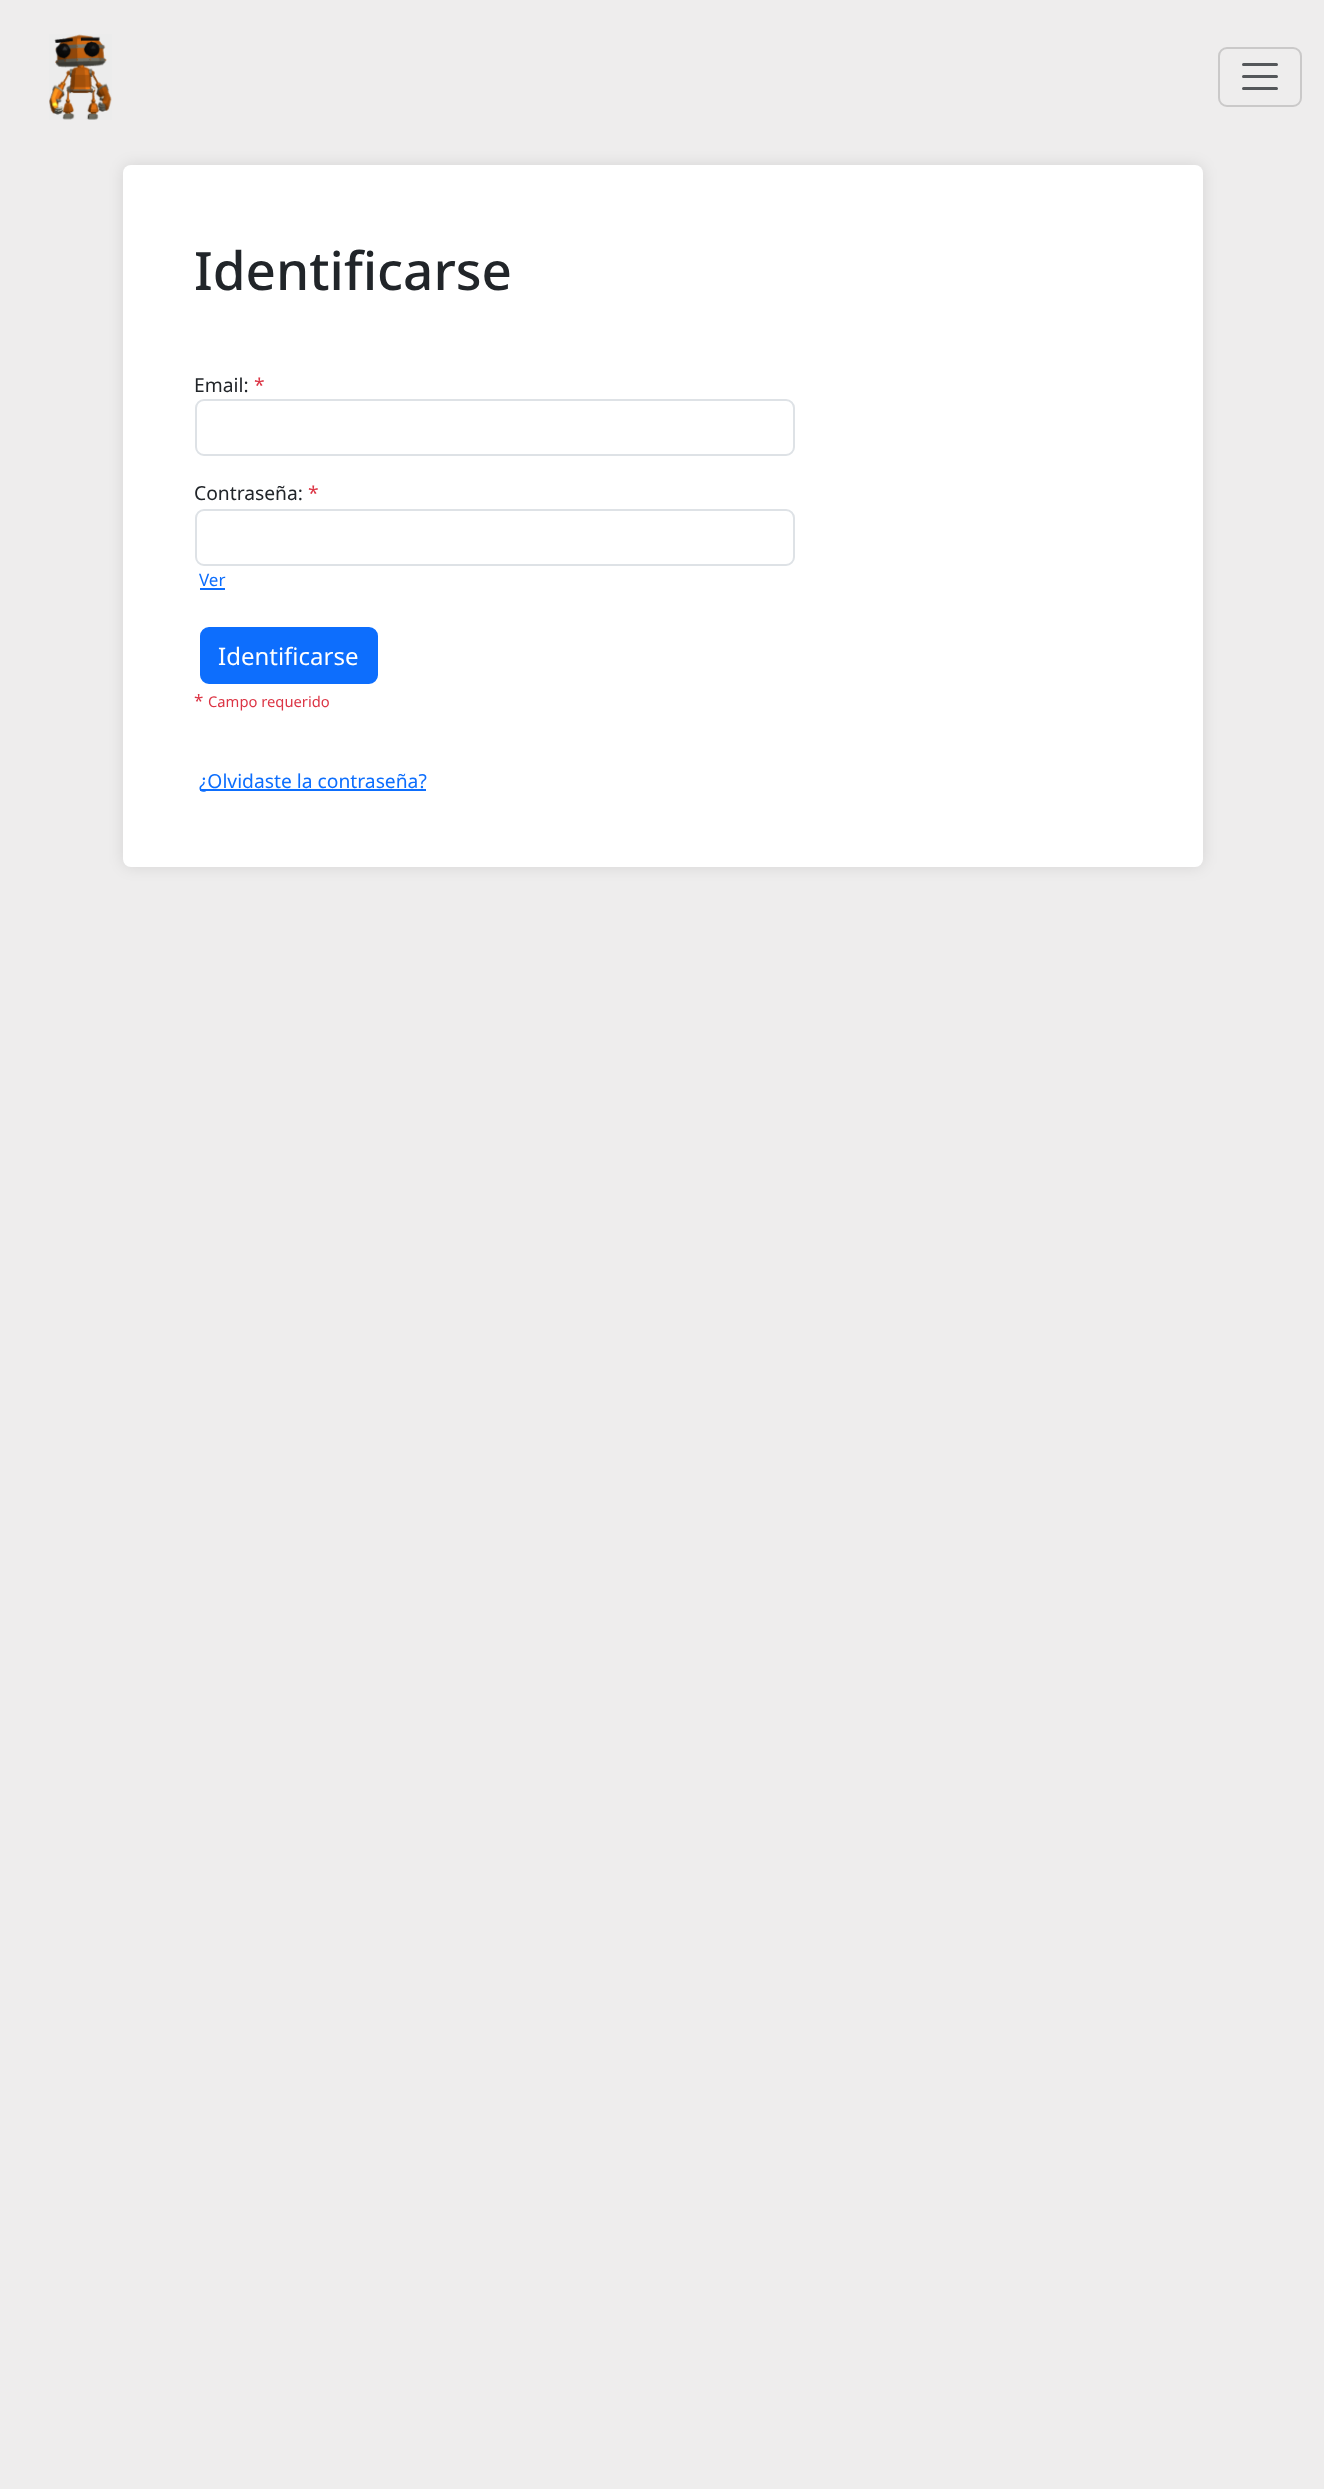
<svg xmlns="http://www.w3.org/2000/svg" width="1324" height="2489">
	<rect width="100%" height="100%" fill="#EEEDED" />
	<image x="49" y="34" width="63" height="86" href="assets/img1.png" />
	<rect x="1219" y="48" width="82" height="58" rx="8" fill="none" stroke="#CAC9C9" stroke-width="2" />
	<path d="M1243.5 64.5H1276.5M1243.5 76.5H1276.5M1243.5 88.5H1276.5" fill="none" stroke="#54575A" stroke-width="3" stroke-linecap="round" />
	<rect x="123" y="165" width="1080" height="702" rx="8" fill="#000000" fill-opacity="0.1" filter="blur(7.5px)" />
	<rect x="123" y="165" width="1080" height="702" rx="8" fill="#FFFFFF" />
	<text x="194" y="290" font-family="Noto Sans" font-size="53" font-weight="500" fill="#212529">Identificarse</text>
	<text x="194" y="392" font-family="Noto Sans" font-size="19.25" fill="#212529">Email:</text>
	<text x="254" y="392" font-family="Noto Sans" font-size="19.25" fill="#DC3545">*</text>
	<rect x="196" y="400" width="598" height="55" rx="8" fill="none" stroke="#DEE2E6" stroke-width="2" />
	<text x="194" y="500" font-family="Noto Sans" font-size="19.25" fill="#212529">Contraseña:</text>
	<text x="308" y="500" font-family="Noto Sans" font-size="19.25" fill="#DC3545">*</text>
	<rect x="196" y="510" width="598" height="55" rx="8" fill="none" stroke="#DEE2E6" stroke-width="2" />
	<text x="199" y="586" font-family="Noto Sans" font-size="17" fill="#0D6EFD">Ver</text>
	<rect x="200" y="588" width="25" height="2" fill="#0D6EFD" />
	<rect x="201" y="628" width="176" height="55" rx="8" fill="#0D6EFD" stroke="#0D6EFD" stroke-width="2" />
	<text x="218" y="665" font-family="Noto Sans" font-size="24" fill="#FFFFFF">Identificarse</text>
	<text x="194" y="707" font-family="Noto Sans" font-size="17" fill="#DC3545">*</text>
	<text x="208" y="707" font-family="Noto Sans" font-size="14.75" fill="#DC3545">Campo requerido</text>
	<rect x="200" y="789" width="226" height="2" fill="#0D6EFD" />
	<text x="199" y="788" font-family="Noto Sans" font-size="19.25" fill="#0D6EFD">¿Olvidaste la contraseña?</text>
</svg>
